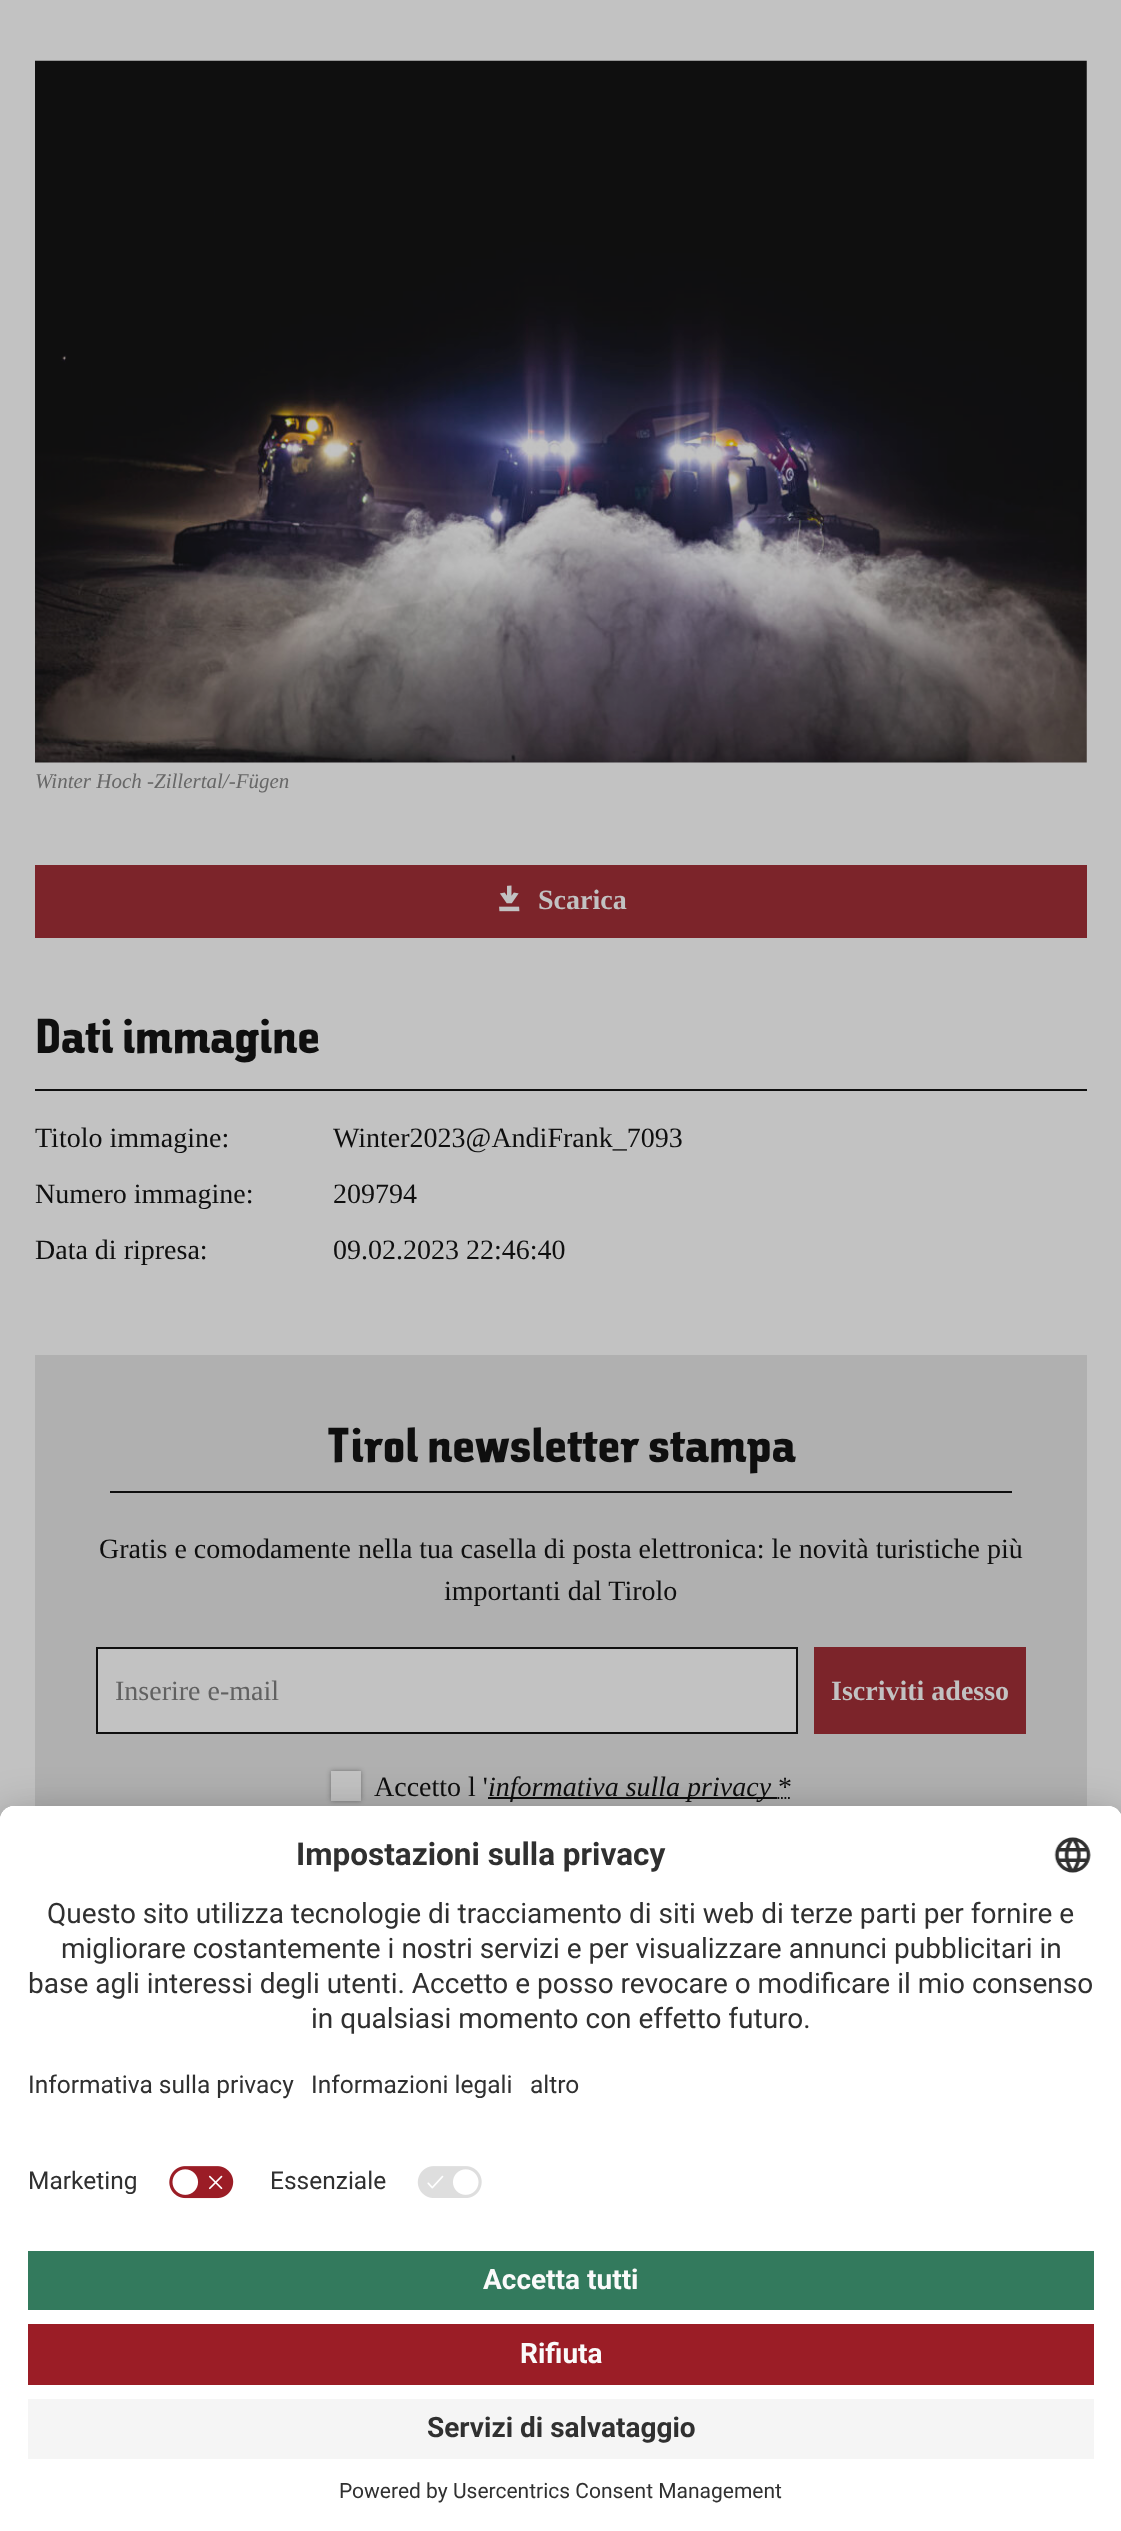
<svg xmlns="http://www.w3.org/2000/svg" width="1121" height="2531">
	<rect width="100%" height="100%" fill="#C2C2C2" />
	<image x="35" y="60" width="1052" height="703" href="assets/img1.png" />
	<text x="35" y="788" font-family="Liberation Serif" font-size="21" font-style="italic" fill="#676767">Winter Hoch -Zillertal/-Fügen</text>
	<rect x="35" y="865" width="1052" height="73" fill="#7C242A" />
	<image x="499" y="885" width="21" height="27" href="assets/img2.png" />
	<text x="538" y="909" font-family="Liberation Serif" font-size="28" font-weight="700" fill="#C2C2C2">Scarica</text>
	<text x="35" y="1053" font-family="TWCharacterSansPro" font-size="49" fill="#0F0F0F">Dati immagine</text>
	<rect x="35" y="1089" width="1052" height="2" fill="#0F0F0F" />
	<g font-family="Liberation Serif" font-size="28" fill="#0F0F0F">
		<text x="35" y="1147">Titolo immagine:</text>
		<text x="333" y="1147">Winter2023@AndiFrank_7093</text>
		<text x="35" y="1203">Numero immagine:</text>
		<text x="333" y="1203">209794</text>
		<text x="35" y="1259">Data di ripresa:</text>
		<text x="333" y="1259">09.02.2023 22:46:40</text>
	</g>
	<rect x="35" y="1355" width="1052" height="451" fill="#B0B0B0" />
	<text x="327" y="1462" font-family="TWCharacterSansPro" font-size="49" fill="#0F0F0F">Tirol newsletter stampa</text>
	<rect x="110" y="1491" width="902" height="2" fill="#0F0F0F" />
	<g font-family="Liberation Serif" font-size="28" fill="#0F0F0F">
		<text x="99" y="1558">Gratis e comodamente nella tua casella di posta elettronica: le novità turistiche più</text>
		<text x="444" y="1600">importanti dal Tirolo</text>
	</g>
	<rect x="97" y="1648" width="700" height="85" fill="#C2C2C2" stroke="#0F0F0F" stroke-width="2" />
	<text x="115" y="1700" font-family="Liberation Serif" font-size="28" fill="#616161">Inserire e-mail</text>
	<rect x="814" y="1647" width="212" height="87" fill="#7C242A" />
	<text x="831" y="1700" font-family="Liberation Serif" font-size="28" font-weight="700" fill="#C2C2C2">Iscriviti adesso</text>
	<rect x="331" y="1771" width="30" height="30" fill="#0F0F0F" fill-opacity="0.4" filter="blur(2.5px)" />
	<rect x="331" y="1771" width="30" height="30" fill="#C2C2C2" />
	<text x="374" y="1796" font-family="Liberation Serif" font-size="28" fill="#0F0F0F">Accetto l '</text>
	<rect x="488" y="1797" width="289" height="2" fill="#0F0F0F" />
	<text x="488" y="1796" font-family="Liberation Serif" font-size="28" font-style="italic" fill="#0F0F0F">informativa sulla privacy</text>
	<text x="778" y="1796" font-family="Liberation Serif" font-size="28" fill="#0F0F0F">*</text>
	<path d="M777.5 1798H791.5" fill="none" stroke="#0F0F0F" stroke-width="1.8" stroke-dasharray="1.75 1.75" />
	<rect x="0" y="1841" width="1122" height="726" rx="14" fill="#000000" fill-opacity="0.3" filter="blur(24.5px)" />
	<rect x="0" y="1815" width="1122" height="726" rx="14" fill="#000000" fill-opacity="0.22" filter="blur(23px)" />
	<path d="M14 1806H1108C1115.5 1806 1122 1812.5 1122 1820V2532H0V1820C0 1812.5 6.5 1806 14 1806Z" fill="#FFFFFF" />
	<path d="M14 1806H1108C1115.5 1806 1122 1812.5 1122 1820V2230H0V1820C0 1812.5 6.5 1806 14 1806Z" fill="#FFFFFF" />
	<path d="M14 1806H1108C1115.5 1806 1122 1812.5 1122 1820V2153H0V1820C0 1812.5 6.5 1806 14 1806Z" fill="#FFFFFF" />
	<text x="296" y="1865" font-family="Roboto" font-size="31.5" font-weight="700" fill="#303030">Impostazioni sulla privacy</text>
	<image x="1054" y="1837" width="37" height="36" href="assets/img3.png" />
	<g font-family="Roboto" font-size="28" fill="#303030">
		<text x="47" y="1923">Questo sito utilizza tecnologie di tracciamento di siti web di terze parti per fornire e</text>
		<text x="61" y="1958">migliorare costantemente i nostri servizi e per visualizzare annunci pubblicitari in</text>
		<text x="28" y="1993">base agli interessi degli utenti. Accetto e posso revocare o modificare il mio consenso</text>
		<text x="311" y="2028">in qualsiasi momento con effetto futuro.</text>
	</g>
	<g font-family="Roboto" font-size="24.5" fill="#303030">
		<text x="28" y="2093">Informativa sulla privacy</text>
		<text x="311" y="2093">Informazioni legali</text>
		<text x="530" y="2093">altro</text>
		<text x="28" y="2189">Marketing</text>
	</g>
	<image x="169" y="2166" width="65" height="33" href="assets/img4.png" />
	<text x="270" y="2189" font-family="Roboto" font-size="24.5" fill="#303030">Essenziale</text>
	<image x="417" y="2166" width="65" height="32" href="assets/img5.png" />
	<rect x="28" y="2251" width="1066" height="59" fill="#337A5D" />
	<text x="483" y="2289" font-family="Roboto" font-size="28" font-weight="700" fill="#FAFAFA">Accetta tutti</text>
	<rect x="28" y="2324" width="1066" height="61" fill="#9B1D26" />
	<text x="520" y="2363" font-family="Roboto" font-size="28" font-weight="700" fill="#FAFAFA">Rifiuta</text>
	<rect x="28" y="2399" width="1066" height="60" fill="#F5F5F5" />
	<text x="427" y="2437" font-family="Roboto" font-size="28" font-weight="700" fill="#303030">Servizi di salvataggio</text>
	<text x="339" y="2498" font-family="Roboto" font-size="21" fill="#303030">Powered by Usercentrics Consent Management</text>
</svg>
